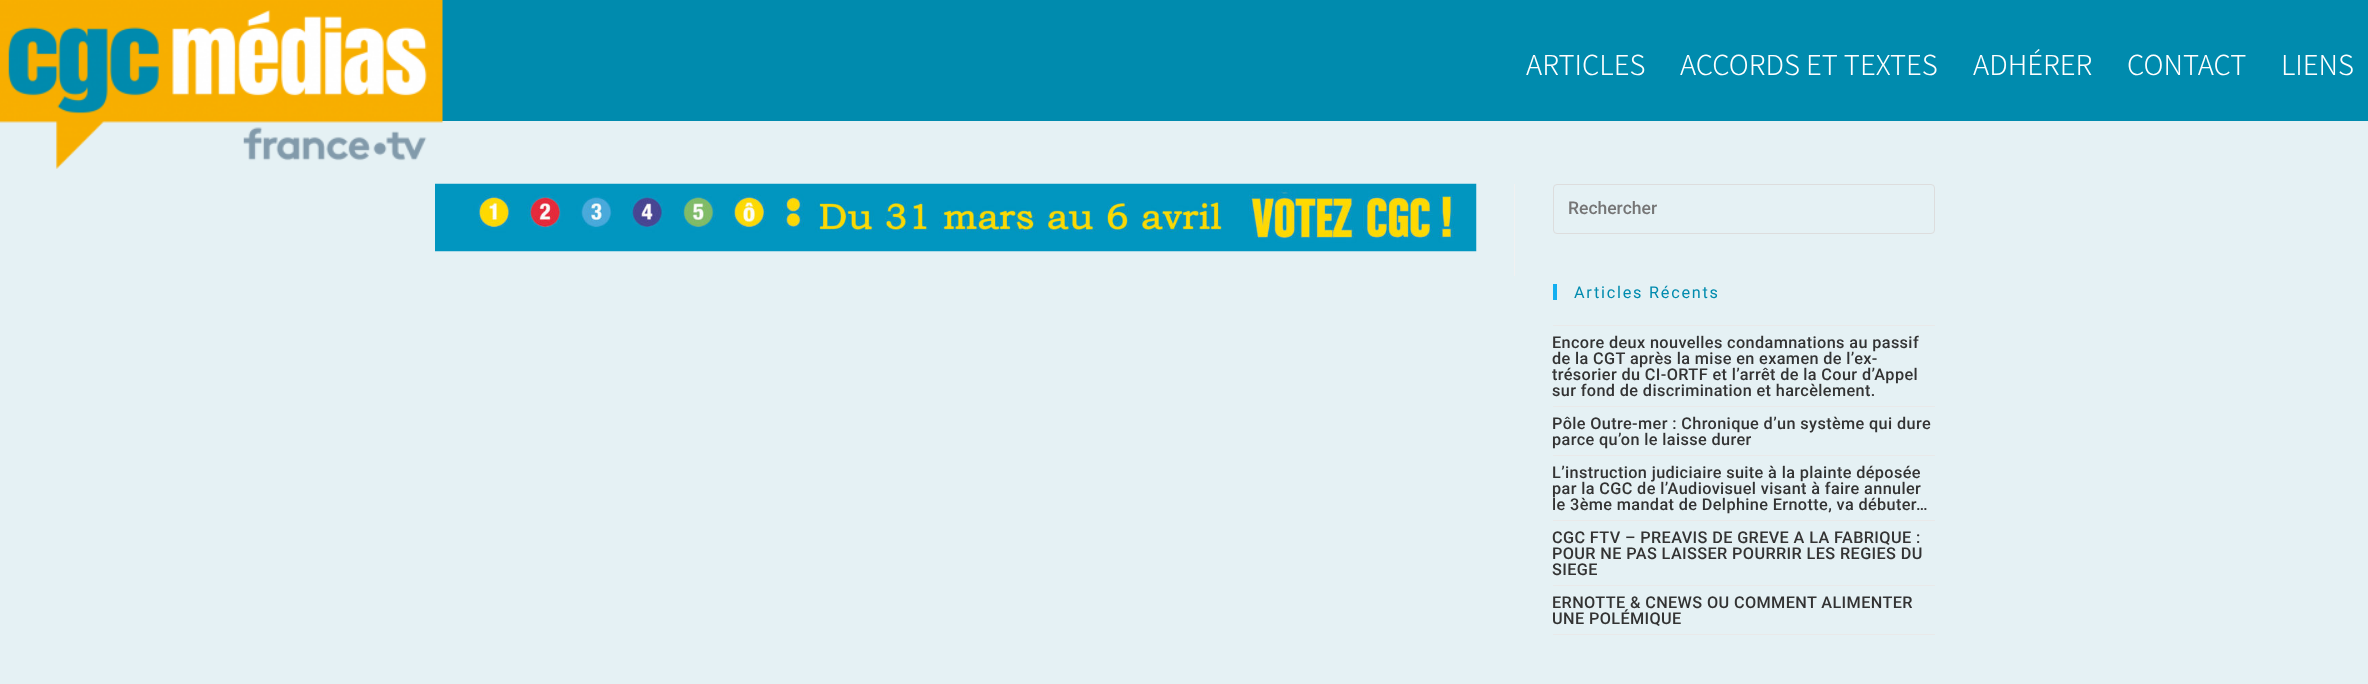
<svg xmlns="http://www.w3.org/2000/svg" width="2368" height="684">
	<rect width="100%" height="100%" fill="#E5F1F4" />
	<rect x="442" y="0" width="1926" height="121" fill="#008BAE" />
	<image x="0" y="0" width="443" height="169" href="assets/img1.png" />
	<g font-family="Noto Sans JP" font-size="27.5" font-weight="300" fill="#FFFFFF">
		<text x="1526" y="75">ARTICLES</text>
		<text x="1680" y="75">ACCORDS ET TEXTES</text>
		<text x="1973" y="75">ADHÉRER</text>
		<text x="2127" y="75">CONTACT</text>
		<text x="2281" y="75">LIENS</text>
	</g>
	<rect x="1514" y="184" width="1" height="92" fill="#F1F1F1" />
	<image x="435" y="183" width="1042" height="69" href="assets/img2.png" />
	<rect x="1553.5" y="184.5" width="381" height="49" rx="3.5" fill="none" stroke="#DDDDDD" />
	<text x="1568" y="214" font-family="Roboto" font-size="17.5" font-weight="500" fill="#757575">Rechercher</text>
	<rect x="1553" y="284" width="4" height="16" fill="#13AFF0" />
	<text x="1574" y="298" font-family="Roboto" font-size="16.25" letter-spacing="1.75" fill="#008BAE">Articles Récents</text>
	<rect x="1553" y="325" width="382" height="1" fill="#E9E9E9" />
	<rect x="1553" y="406" width="382" height="1" fill="#E9E9E9" />
	<g font-family="Roboto" font-size="16.25" font-weight="500" letter-spacing="0.38" fill="#333333">
		<text x="1552" y="348">Encore deux nouvelles condamnations au passif</text>
		<text x="1552" y="364">de la CGT après la mise en examen de l’ex-</text>
		<text x="1552" y="380">trésorier du CI-ORTF et l’arrêt de la Cour d’Appel</text>
		<text x="1552" y="396">sur fond de discrimination et harcèlement.</text>
	</g>
	<rect x="1553" y="455" width="382" height="1" fill="#E9E9E9" />
	<g font-family="Roboto" font-size="16.25" font-weight="500" letter-spacing="0.38" fill="#333333">
		<text x="1552" y="429">Pôle Outre-mer : Chronique d’un système qui dure</text>
		<text x="1552" y="445">parce qu’on le laisse durer</text>
	</g>
	<rect x="1553" y="520" width="382" height="1" fill="#E9E9E9" />
	<g font-family="Roboto" font-size="16.25" font-weight="500" letter-spacing="0.38" fill="#333333">
		<text x="1552" y="478">L’instruction judiciaire suite à la plainte déposée</text>
		<text x="1552" y="494">par la CGC de l’Audiovisuel visant à faire annuler</text>
		<text x="1552" y="510">le 3ème mandat de Delphine Ernotte, va débuter…</text>
	</g>
	<rect x="1553" y="585" width="382" height="1" fill="#E9E9E9" />
	<g font-family="Roboto" font-size="16.25" font-weight="500" letter-spacing="0.38" fill="#333333">
		<text x="1552" y="543">CGC FTV – PREAVIS DE GREVE A LA FABRIQUE :</text>
		<text x="1552" y="559">POUR NE PAS LAISSER POURRIR LES REGIES DU</text>
		<text x="1552" y="575">SIEGE</text>
	</g>
	<rect x="1553" y="634" width="382" height="1" fill="#E9E9E9" />
	<g font-family="Roboto" font-size="16.25" font-weight="500" letter-spacing="0.38" fill="#333333">
		<text x="1552" y="608">ERNOTTE &amp; CNEWS OU COMMENT ALIMENTER</text>
		<text x="1552" y="624">UNE POLÉMIQUE</text>
	</g>
</svg>
